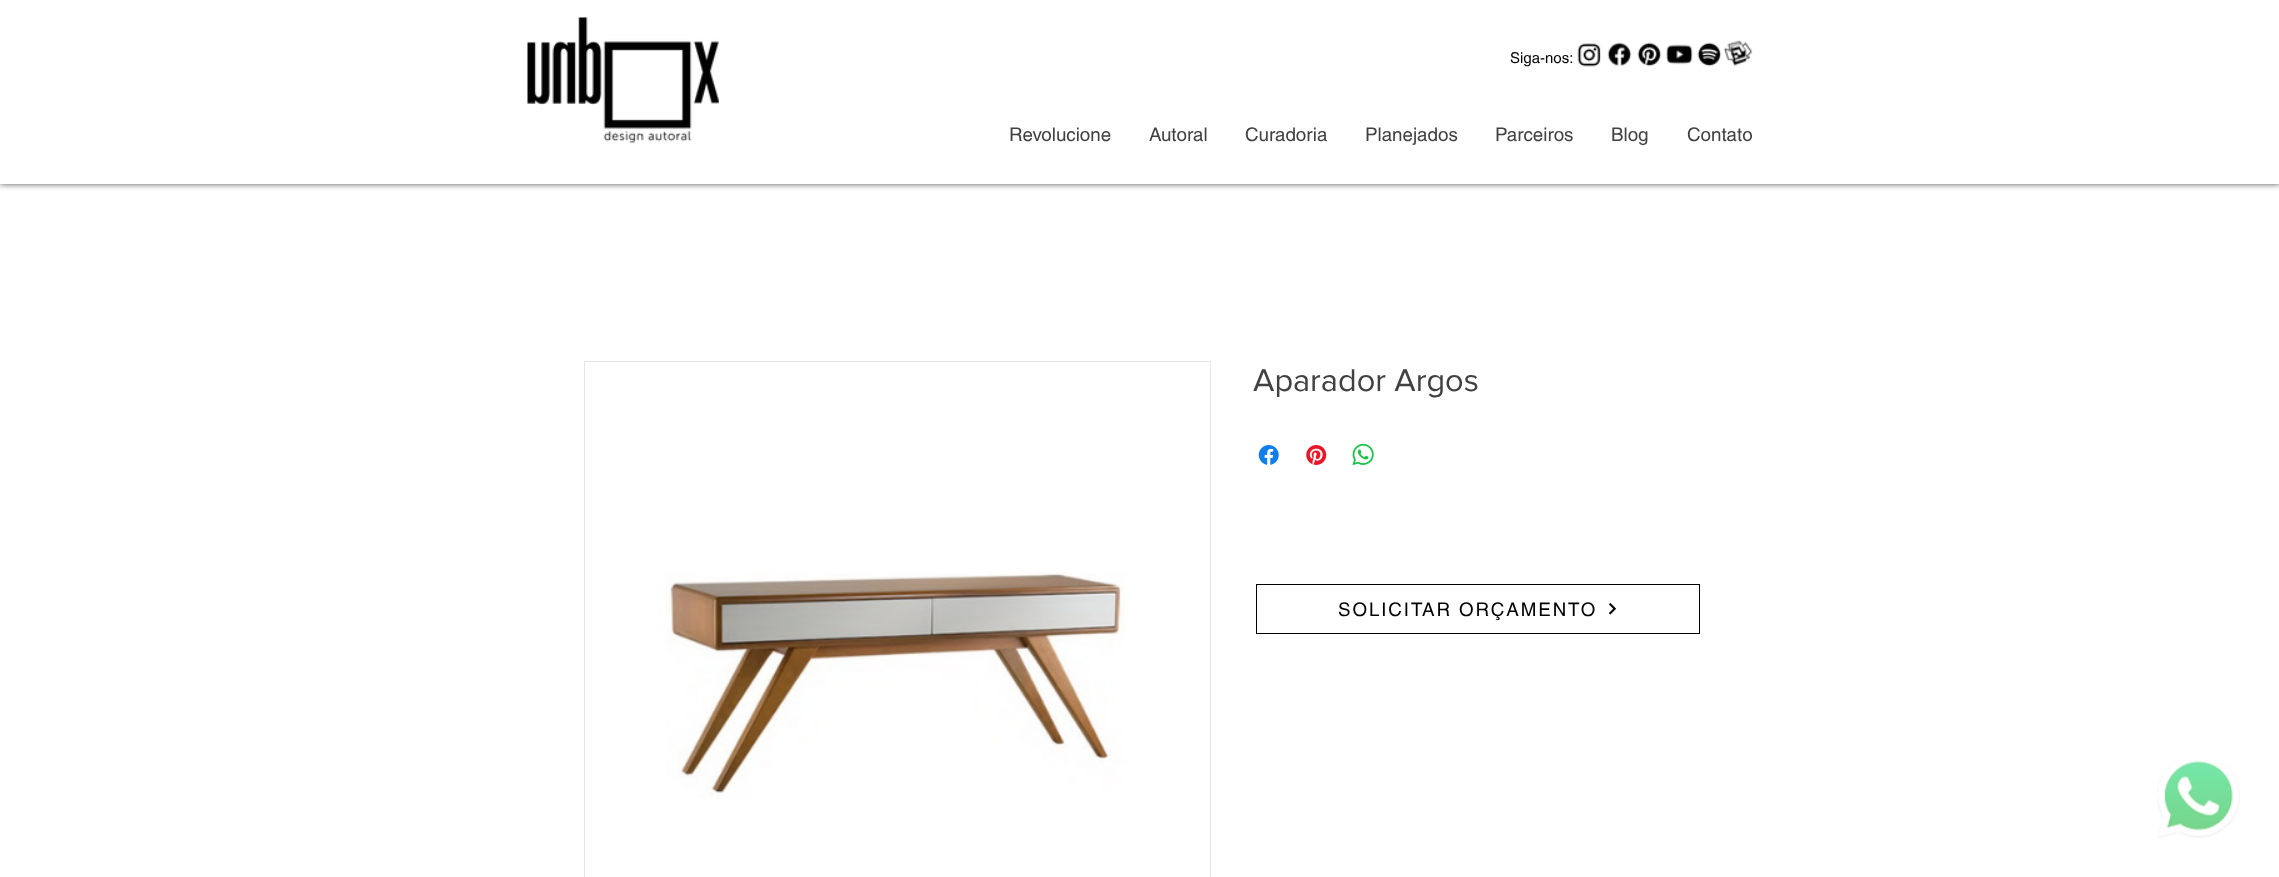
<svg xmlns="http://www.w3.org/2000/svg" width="2279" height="877">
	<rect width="100%" height="100%" fill="#FFFFFF" />
	<rect x="0" y="0" width="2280" height="184" fill="#000000" fill-opacity="0.7" filter="blur(3px)" />
	<rect x="0" y="0" width="2279" height="184" fill="#FFFFFF" />
	<image x="527" y="17" width="192" height="126" href="assets/img1.png" />
	<text x="1510" y="63" font-family="helvetica" font-size="15" fill="#000000">Siga-nos:</text>
	<image x="1577" y="43" width="24" height="24" href="assets/img2.png" />
	<image x="1607" y="42" width="25" height="24" href="assets/img3.png" />
	<image x="1637" y="42" width="25" height="25" href="assets/img4.png" />
	<image x="1666" y="44" width="27" height="21" href="assets/img5.png" />
	<image x="1697" y="42" width="25" height="25" href="assets/img6.png" />
	<image x="1724" y="40" width="29" height="26" href="assets/img7.png" />
	<g font-family="helvetica" font-size="18.75" fill="#414141">
		<text x="1009" y="141">Revolucione</text>
		<text x="1149" y="141">Autoral</text>
		<text x="1245" y="141">Curadoria</text>
		<text x="1365" y="141">Planejados</text>
		<text x="1495" y="141">Parceiros</text>
		<text x="1611" y="141">Blog</text>
		<text x="1687" y="141">Contato</text>
	</g>
	<rect x="584.5" y="361.5" width="626" height="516" fill="none" stroke="#E8E6E6" />
	<image x="666" y="572" width="459" height="227" href="assets/img8.png" />
	<text x="1253" y="391" font-family="'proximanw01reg'" font-size="32.5" fill="#414141">Aparador Argos</text>
	<image x="1258" y="445" width="21" height="20" href="assets/img9.png" />
	<image x="1306" y="445" width="21" height="20" href="assets/img10.png" />
	<image x="1352" y="443" width="22" height="23" href="assets/img11.png" />
	<rect x="1256.5" y="584.5" width="443" height="49" fill="none" stroke="#000000" />
	<text x="1338" y="616" font-family="helvetica" font-size="18.75" letter-spacing="1.9" fill="#000000">SOLICITAR ORÇAMENTO</text>
	<image x="1609" y="603" width="7" height="12" href="assets/img12.png" />
	<image x="2157" y="760" width="83" height="79" href="assets/img13.png" />
</svg>
